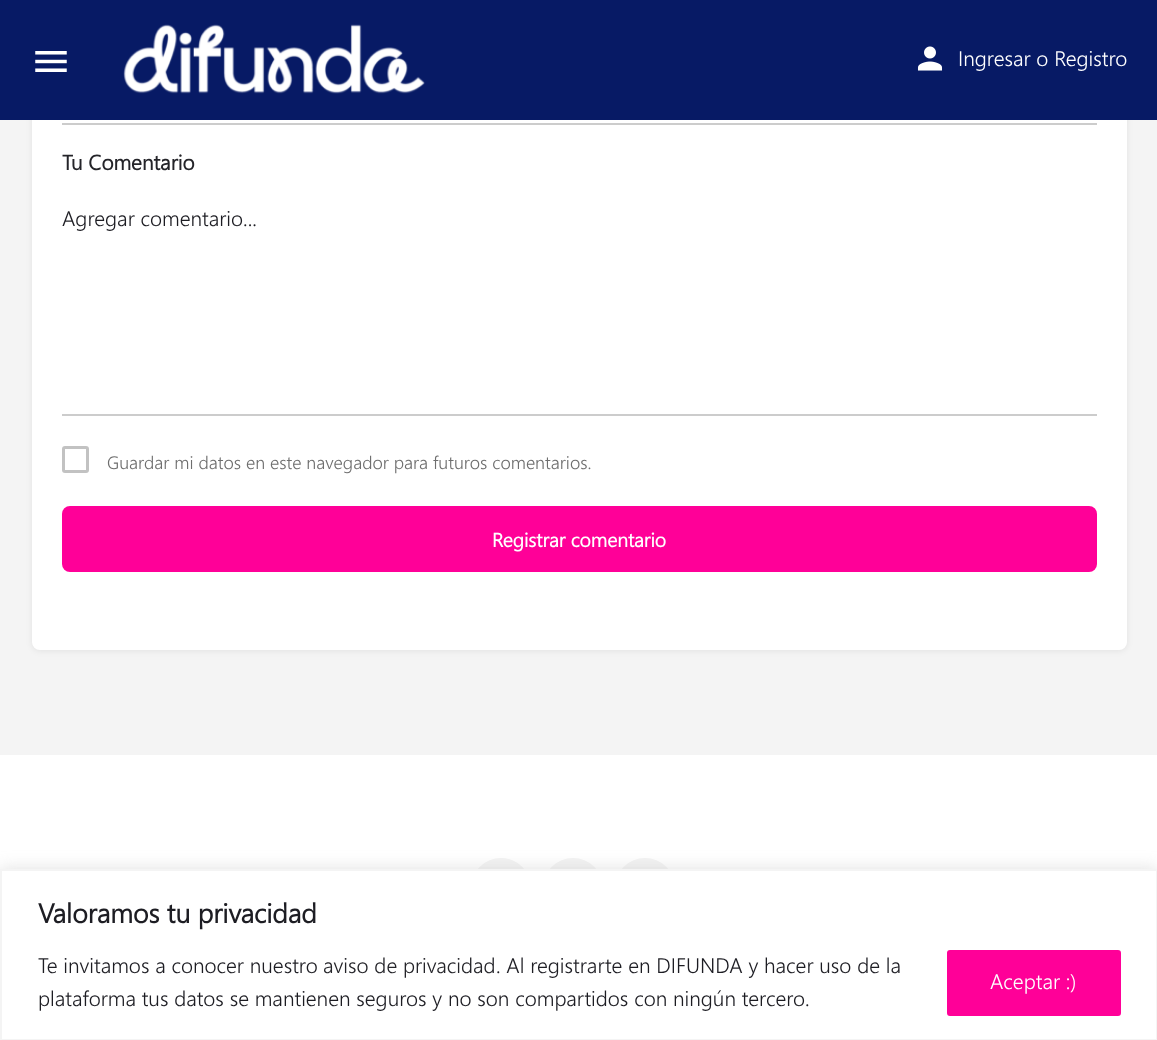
<svg xmlns="http://www.w3.org/2000/svg" width="1157" height="1040">
	<rect width="100%" height="100%" fill="#F4F4F4" />
	<rect x="32" y="-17" width="1095" height="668" rx="8" fill="#000000" fill-opacity="0.07" filter="blur(3px)" />
	<rect x="32" y="-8" width="1095" height="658" rx="8" fill="#FFFFFF" />
	<rect x="0" y="0" width="1157" height="120" fill="#071A65" />
	<image x="35" y="51" width="32" height="21" href="assets/img1.png" />
	<image x="123" y="24" width="302" height="70" href="assets/img2.png" />
	<image x="917" y="46" width="26" height="25" href="assets/img3.png" />
	<text x="958" y="66" font-family="Segoe UI" font-size="21" font-weight="300" fill="#FFFFFF">Ingresar o Registro</text>
	<rect x="62" y="123" width="1035" height="2" fill="#CCCCCC" />
	<text x="62" y="170" font-family="Segoe UI" font-size="21" font-weight="700" fill="#242429">Tu Comentario</text>
	<rect x="62" y="414" width="1035" height="2" fill="#CCCCCC" />
	<text x="62" y="226" font-family="Segoe UI" font-size="21" font-weight="300" fill="#1D1D23">Agregar comentario...</text>
	<rect x="63.5" y="447.5" width="24" height="24" rx="1.5" fill="none" stroke="#C2C2C2" stroke-width="3" />
	<text x="107" y="469" font-family="Segoe UI" font-size="18" font-weight="300" fill="#6E6E6E">Guardar mi datos en este navegador para futuros comentarios.</text>
	<rect x="62" y="506" width="1035" height="66" rx="8" fill="#FF0098" />
	<text x="492" y="547" font-family="Segoe UI" font-size="19.5" font-weight="700" fill="#FFFFFF">Registrar comentario</text>
	<rect x="0" y="755" width="1157" height="114" fill="#FFFFFF" />
	<circle cx="501" cy="888" r="30" fill="#F4F4F4" />
	<circle cx="573" cy="888" r="30" fill="#F4F4F4" />
	<circle cx="645" cy="888" r="30" fill="#F4F4F4" />
	<rect x="0" y="867" width="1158" height="173" fill="#ACABAB" fill-opacity="0.3" filter="blur(7.5px)" />
	<rect x="1" y="870" width="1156" height="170" fill="#FFFFFF" stroke="#F4F4F4" stroke-width="2" />
	<text x="38" y="923" font-family="Segoe UI" font-size="27" font-weight="700" fill="#1D1D23">Valoramos tu privacidad</text>
	<text x="38" y="973" font-family="Segoe UI" font-size="21" font-weight="300" fill="#1D1D23">Te invitamos a conocer nuestro</text>
	<text x="323" y="973" font-family="Segoe UI" font-size="21" font-weight="300" fill="#242429">aviso de privacidad</text>
	<g font-family="Segoe UI" font-size="21" font-weight="300" fill="#1D1D23">
		<text x="496" y="973">. Al registrarte en DIFUNDA y hacer uso de la</text>
		<text x="38" y="1006">plataforma tus datos se mantienen seguros y no son compartidos con ningún tercero.</text>
	</g>
	<rect x="948.5" y="951.5" width="171" height="63" rx="1.5" fill="#FF0098" stroke="#FF0098" stroke-width="3" />
	<text x="990" y="989" font-family="Segoe UI" font-size="21" font-weight="300" fill="#FFFFFF">Aceptar :)</text>
</svg>
